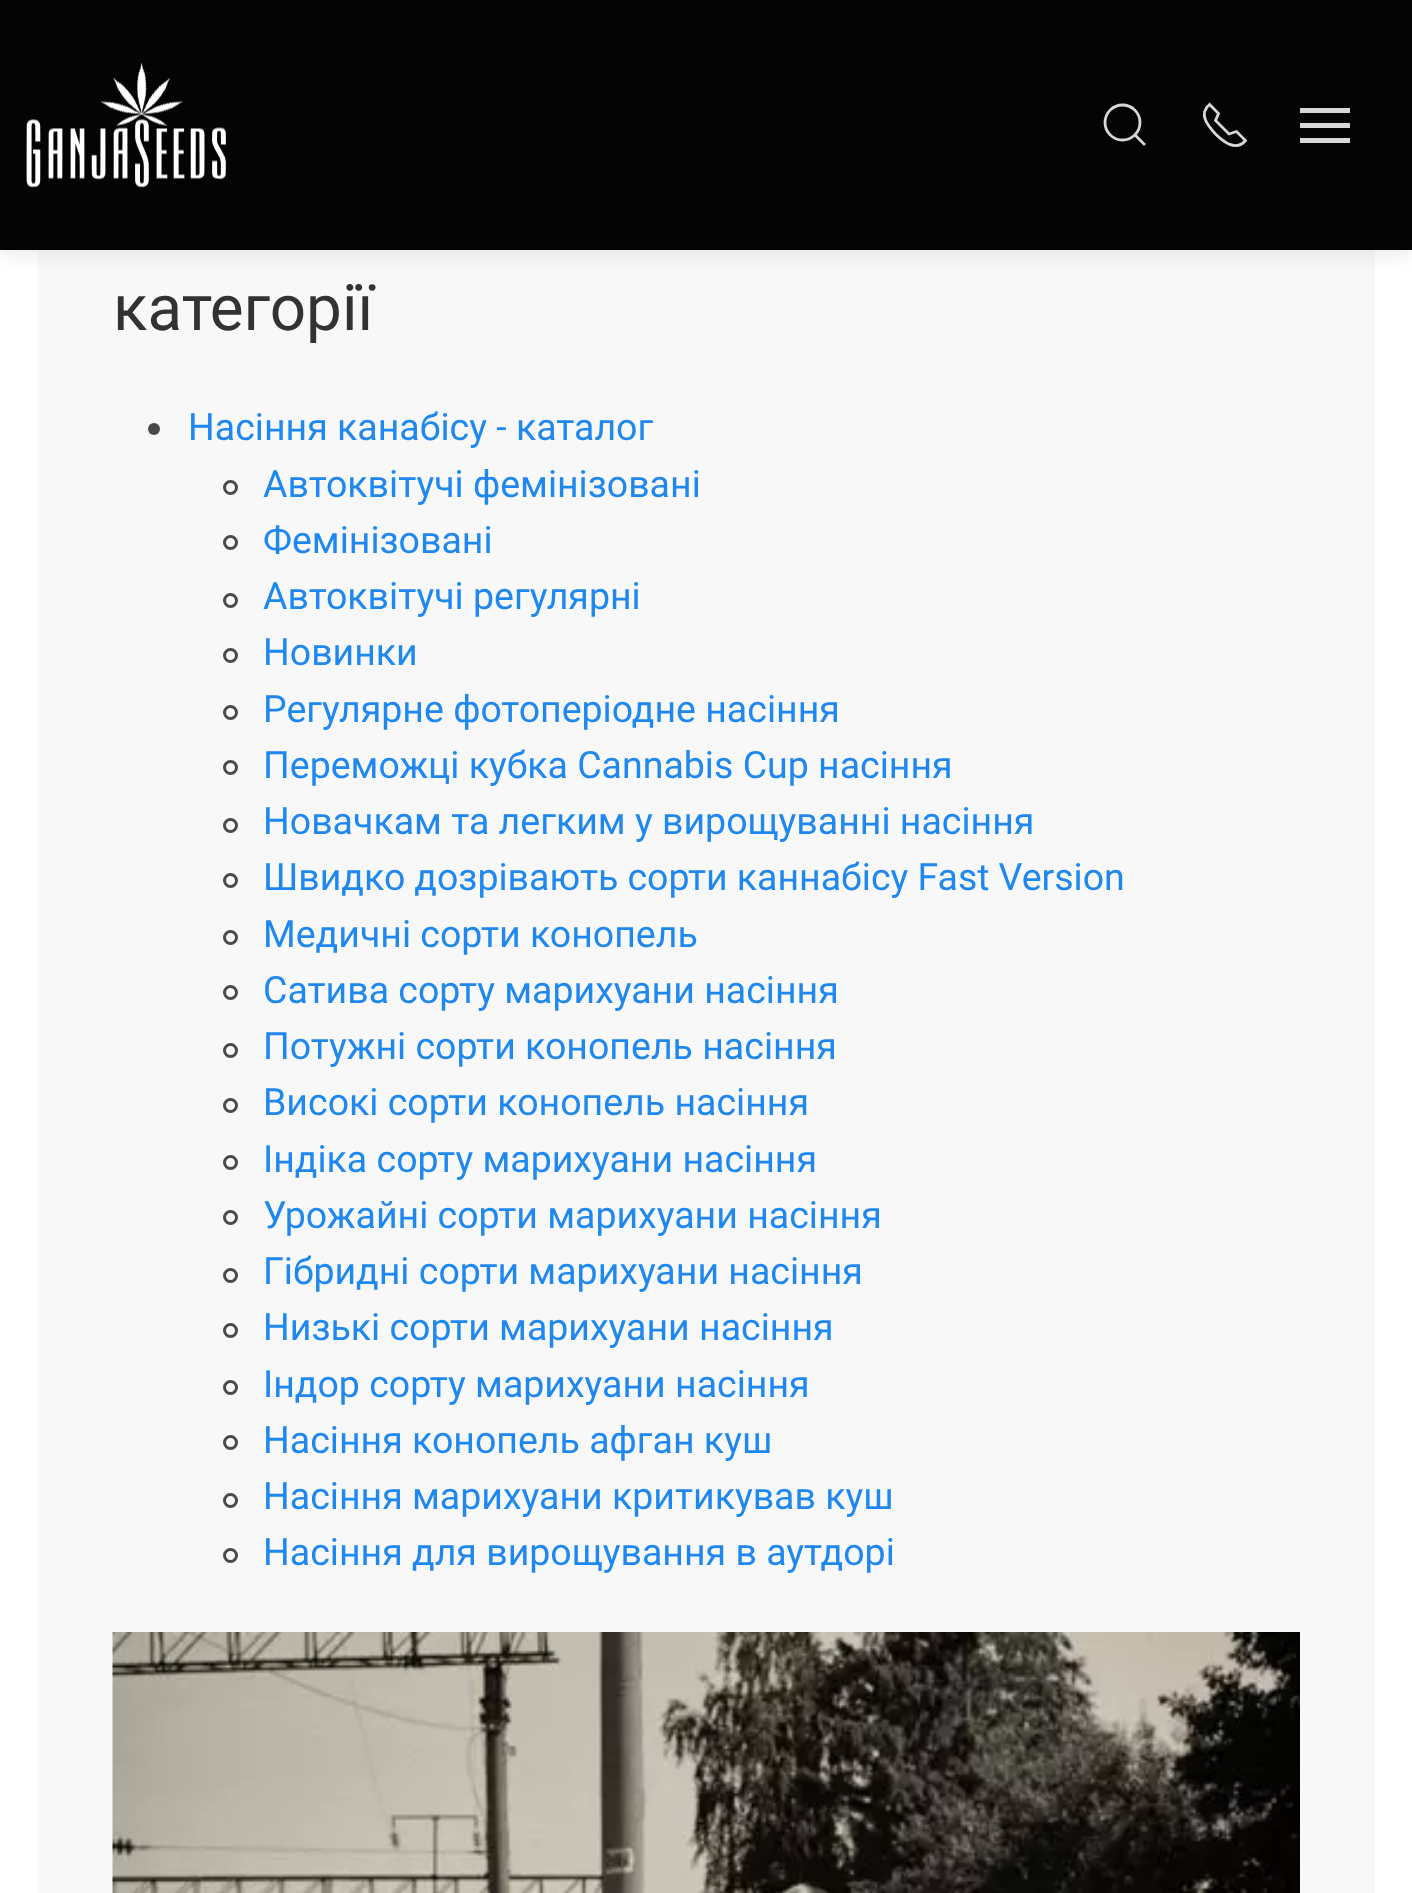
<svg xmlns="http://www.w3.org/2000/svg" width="1412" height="1893">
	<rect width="100%" height="100%" fill="#FFFFFF" />
	<rect x="38" y="250" width="1337" height="1643" fill="#F8F8F8" />
	<rect x="0" y="5" width="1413" height="250" fill="#000000" fill-opacity="0.08" filter="blur(10px)" />
	<rect x="0" y="0" width="1412" height="250" fill="#040404" />
	<image x="26" y="63" width="200" height="125" href="assets/img1.png" />
	<circle cx="1122.5" cy="122.5" r="17.5" fill="none" stroke="#D8D8D8" stroke-width="2.8" />
	<path d="M1135 135L1145 145Z" fill="none" stroke="#D8D8D8" stroke-width="2.8" />
	<path d="M1215.5 134C1223 141.5 1236 152 1245.5 140.5L1236.5 131.5L1229 134L1215.5 120.5L1218.5 113.5L1209.5 104.5C1198 114 1208 126 1215.5 134" fill="none" stroke="#D8D8D8" stroke-width="2.8" />
	<rect x="1300" y="108" width="50" height="5" fill="#D8D8D8" />
	<rect x="1300" y="123" width="50" height="5" fill="#D8D8D8" />
	<rect x="1300" y="138" width="50" height="5" fill="#D8D8D8" />
	<text x="113" y="330" font-family="Roboto" font-size="63.75" fill="#323232">категорії</text>
	<circle cx="154" cy="429" r="6" fill="#4A4A4A" />
	<text x="188" y="440" font-family="Roboto" font-size="37.5" fill="#1E87F0">Насіння канабісу - каталог</text>
	<circle cx="230.5" cy="487.5" r="6" fill="none" stroke="#4A4A4A" stroke-width="3" />
	<text x="263" y="497" font-family="Roboto" font-size="37.5" fill="#1E87F0">Автоквітучі фемінізовані</text>
	<circle cx="230.5" cy="542.5" r="6" fill="none" stroke="#4A4A4A" stroke-width="3" />
	<text x="263" y="553" font-family="Roboto" font-size="37.5" fill="#1E87F0">Фемінізовані</text>
	<circle cx="230.5" cy="600.5" r="6" fill="none" stroke="#4A4A4A" stroke-width="3" />
	<text x="263" y="609" font-family="Roboto" font-size="37.5" fill="#1E87F0">Автоквітучі регулярні</text>
	<circle cx="230.5" cy="655.5" r="6" fill="none" stroke="#4A4A4A" stroke-width="3" />
	<text x="263" y="665" font-family="Roboto" font-size="37.5" fill="#1E87F0">Новинки</text>
	<circle cx="230.5" cy="712.5" r="6" fill="none" stroke="#4A4A4A" stroke-width="3" />
	<text x="263" y="722" font-family="Roboto" font-size="37.5" fill="#1E87F0">Регулярне фотоперіодне насіння</text>
	<circle cx="230.5" cy="767.5" r="6" fill="none" stroke="#4A4A4A" stroke-width="3" />
	<text x="263" y="778" font-family="Roboto" font-size="37.5" fill="#1E87F0">Переможці кубка Cannabis Cup насіння</text>
	<circle cx="230.5" cy="825.5" r="6" fill="none" stroke="#4A4A4A" stroke-width="3" />
	<text x="263" y="834" font-family="Roboto" font-size="37.5" fill="#1E87F0">Новачкам та легким у вирощуванні насіння</text>
	<circle cx="230.5" cy="880.5" r="6" fill="none" stroke="#4A4A4A" stroke-width="3" />
	<text x="263" y="890" word-spacing="-0.25" font-family="Roboto" font-size="37.5" fill="#1E87F0">Швидко дозрівають сорти каннабісу Fast Version</text>
	<circle cx="230.5" cy="937.5" r="6" fill="none" stroke="#4A4A4A" stroke-width="3" />
	<text x="263" y="947" font-family="Roboto" font-size="37.5" fill="#1E87F0">Медичні сорти конопель</text>
	<circle cx="230.5" cy="992.5" r="6" fill="none" stroke="#4A4A4A" stroke-width="3" />
	<text x="263" y="1003" font-family="Roboto" font-size="37.5" fill="#1E87F0">Сатива сорту марихуани насіння</text>
	<circle cx="230.5" cy="1050.5" r="6" fill="none" stroke="#4A4A4A" stroke-width="3" />
	<text x="263" y="1059" font-family="Roboto" font-size="37.5" fill="#1E87F0">Потужні сорти конопель насіння</text>
	<circle cx="230.5" cy="1105.5" r="6" fill="none" stroke="#4A4A4A" stroke-width="3" />
	<text x="263" y="1115" font-family="Roboto" font-size="37.5" fill="#1E87F0">Високі сорти конопель насіння</text>
	<circle cx="230.5" cy="1162.5" r="6" fill="none" stroke="#4A4A4A" stroke-width="3" />
	<text x="263" y="1172" font-family="Roboto" font-size="37.5" fill="#1E87F0">Індіка сорту марихуани насіння</text>
	<circle cx="230.5" cy="1217.5" r="6" fill="none" stroke="#4A4A4A" stroke-width="3" />
	<text x="263" y="1228" font-family="Roboto" font-size="37.5" fill="#1E87F0">Урожайні сорти марихуани насіння</text>
	<circle cx="230.5" cy="1275.5" r="6" fill="none" stroke="#4A4A4A" stroke-width="3" />
	<text x="263" y="1284" font-family="Roboto" font-size="37.5" fill="#1E87F0">Гібридні сорти марихуани насіння</text>
	<circle cx="230.5" cy="1330.5" r="6" fill="none" stroke="#4A4A4A" stroke-width="3" />
	<text x="263" y="1340" font-family="Roboto" font-size="37.5" fill="#1E87F0">Низькі сорти марихуани насіння</text>
	<circle cx="230.5" cy="1387.5" r="6" fill="none" stroke="#4A4A4A" stroke-width="3" />
	<text x="263" y="1397" font-family="Roboto" font-size="37.5" fill="#1E87F0">Індор сорту марихуани насіння</text>
	<circle cx="230.5" cy="1442.5" r="6" fill="none" stroke="#4A4A4A" stroke-width="3" />
	<text x="263" y="1453" font-family="Roboto" font-size="37.5" fill="#1E87F0">Насіння конопель афган куш</text>
	<circle cx="230.5" cy="1500.5" r="6" fill="none" stroke="#4A4A4A" stroke-width="3" />
	<text x="263" y="1509" font-family="Roboto" font-size="37.5" fill="#1E87F0">Насіння марихуани критикував куш</text>
	<circle cx="230.5" cy="1555.5" r="6" fill="none" stroke="#4A4A4A" stroke-width="3" />
	<text x="263" y="1565" font-family="Roboto" font-size="37.5" fill="#1E87F0">Насіння для вирощування в аутдорі</text>
	<image x="112" y="1632" width="1188" height="261" href="assets/img2.png" />
</svg>
